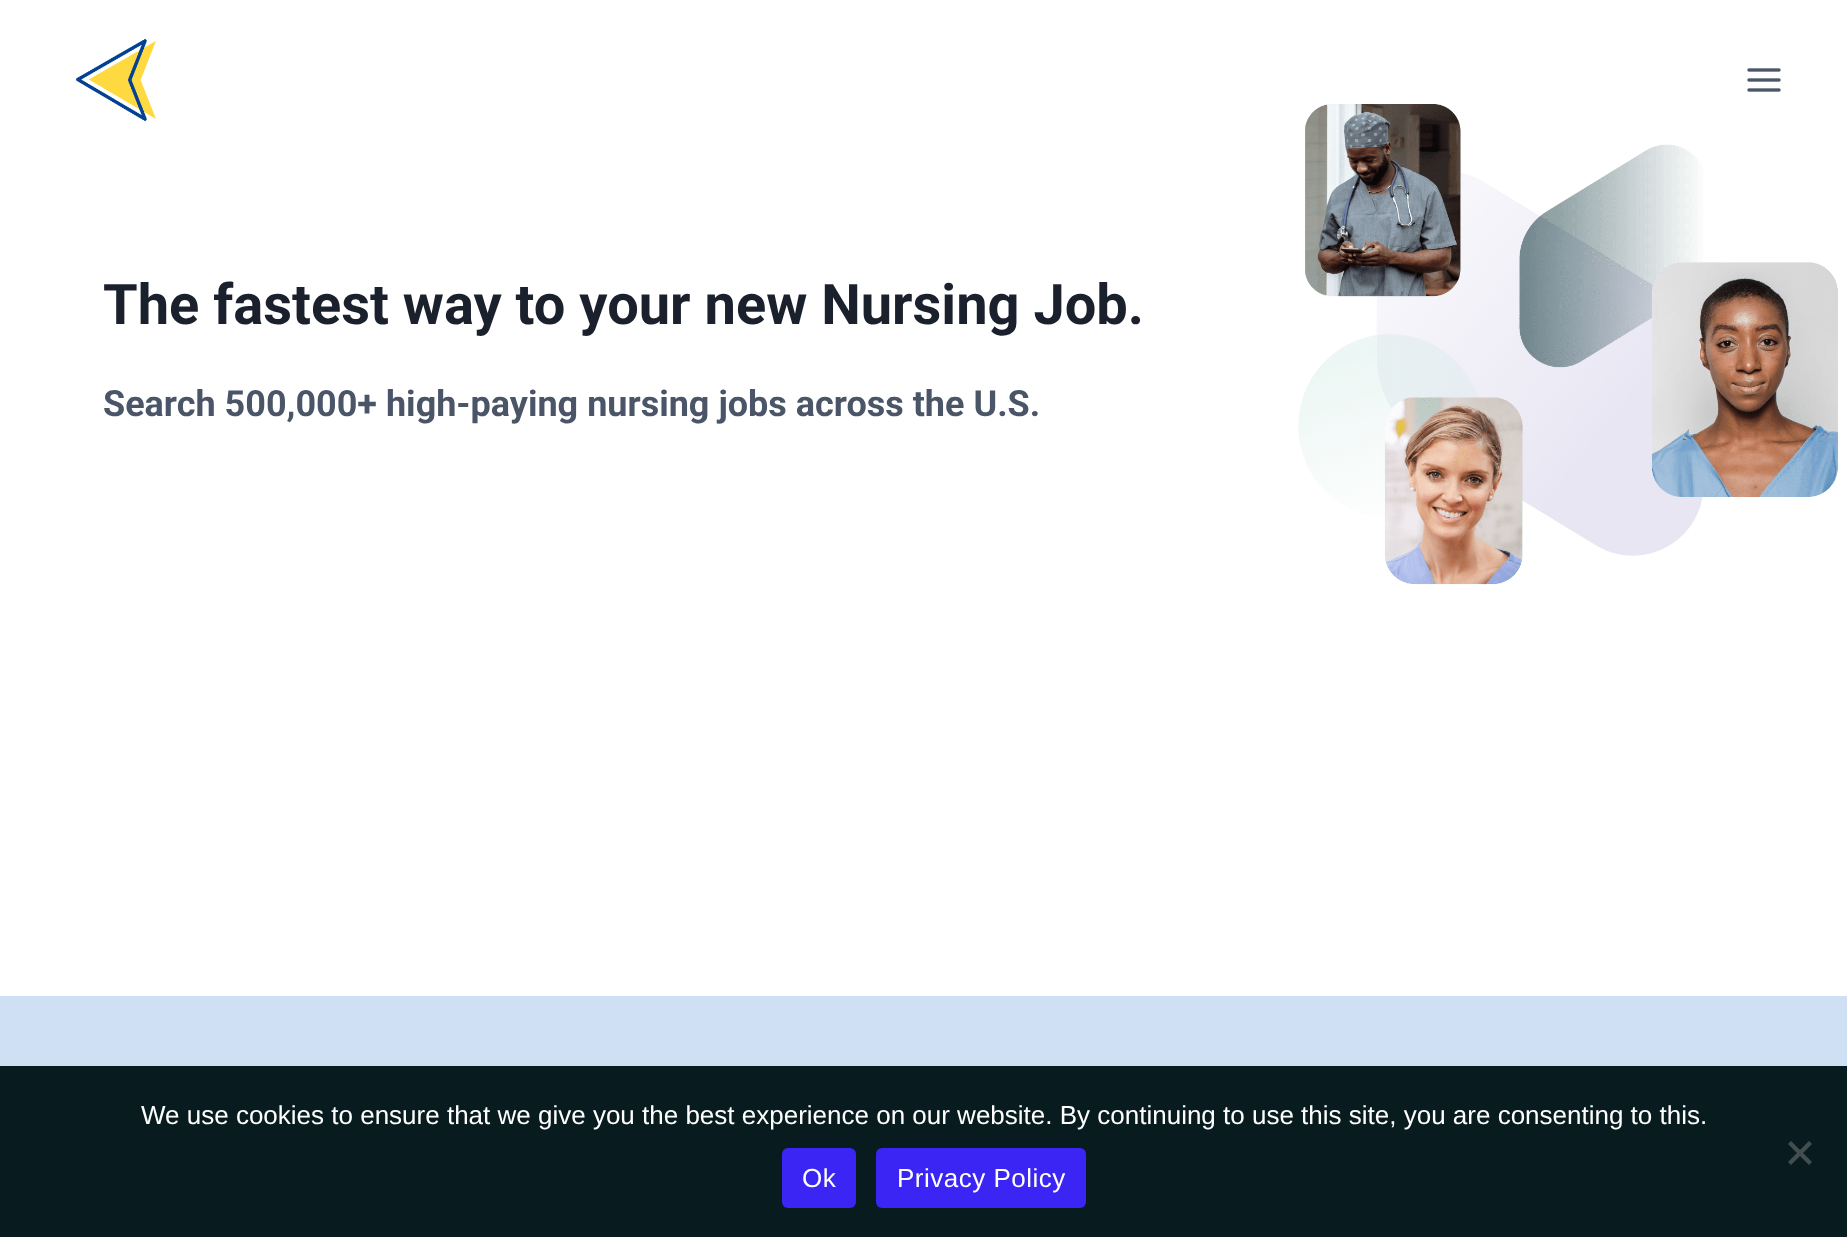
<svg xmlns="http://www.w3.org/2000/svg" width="1847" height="1237">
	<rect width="100%" height="100%" fill="#FFFFFF" />
	<image x="76" y="39" width="80" height="82" href="assets/img1.png" />
	<image x="1747" y="68" width="34" height="24" href="assets/img2.png" />
	<text x="103" y="324" font-family="Roboto" font-size="56" font-weight="700" fill="#1A202C">The fastest way to your new Nursing Job.</text>
	<text x="103" y="416" font-family="Roboto" font-size="36" font-weight="700" fill="#4A5568">Search 500,000+ high-paying nursing jobs across the U.S.</text>
	<image x="1298" y="104" width="540" height="481" href="assets/img3.png" />
	<rect x="0" y="996" width="1847" height="70" fill="#D0E0F4" />
	<rect x="0" y="1066" width="1847" height="171" fill="#081C20" />
	<text x="141" y="1124" font-family="Liberation Sans" font-size="26" fill="#FFFFFF">We use cookies to ensure that we give you the best experience on our website. By continuing to use this site, you are consenting to this.</text>
	<path d="M1809 1141L1812 1144L1791 1165L1788 1162Z" fill="#444E50" />
	<path d="M1788 1144L1791 1141L1812 1162L1809 1165Z" fill="#444E50" />
	<rect x="782" y="1148" width="74" height="60" rx="6" fill="#3A25F5" />
	<text x="802" y="1187" font-family="Liberation Sans" font-size="26" letter-spacing="0.5" fill="#FFFFFF">Ok</text>
	<rect x="876" y="1148" width="210" height="60" rx="6" fill="#3A25F5" />
	<text x="897" y="1187" font-family="Liberation Sans" font-size="26" letter-spacing="0.5" fill="#FFFFFF">Privacy Policy</text>
</svg>
